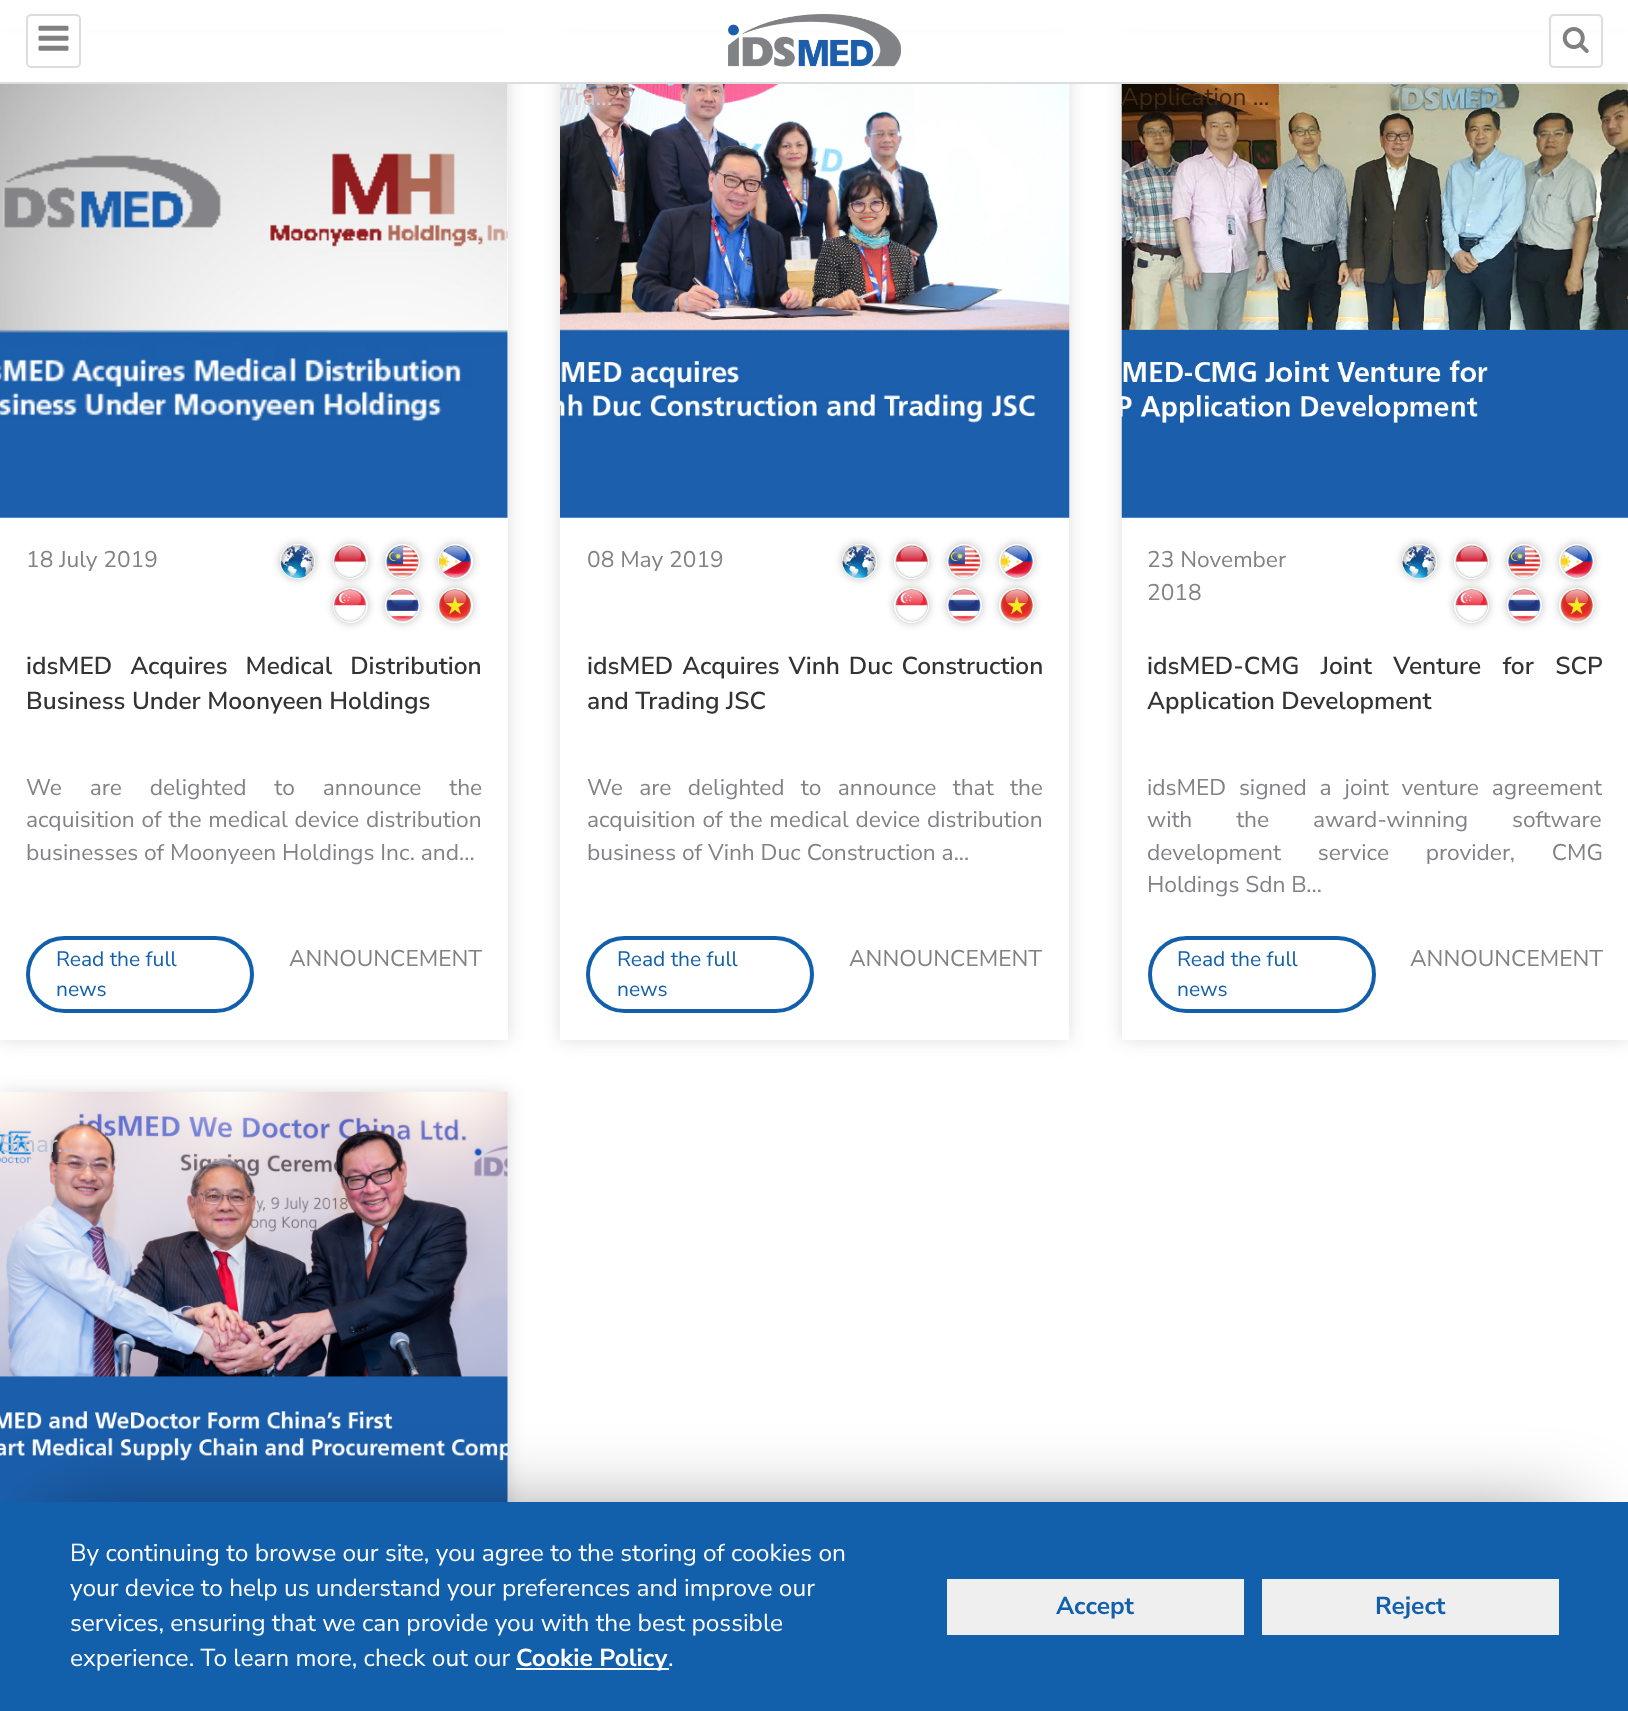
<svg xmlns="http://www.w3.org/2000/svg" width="1628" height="1711">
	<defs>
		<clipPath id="clip1"><path d="M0 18H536V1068H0ZM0 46H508V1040H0Z" clip-rule="evenodd" /></clipPath>
		<clipPath id="clip2"><path d="M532 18H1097V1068H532ZM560 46H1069V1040H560Z" clip-rule="evenodd" /></clipPath>
		<clipPath id="clip3"><path d="M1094 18H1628V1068H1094ZM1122 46H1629V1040H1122Z" clip-rule="evenodd" /></clipPath>
		<clipPath id="clip4"><path d="M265 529H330V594H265ZM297.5 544C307 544 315 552 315 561.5C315 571 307 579 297.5 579C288 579 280 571 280 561.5C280 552 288 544 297.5 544Z" clip-rule="evenodd" /></clipPath>
		<clipPath id="clip5"><path d="M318 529H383V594H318ZM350.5 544C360 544 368 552 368 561.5C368 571 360 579 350.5 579C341 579 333 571 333 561.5C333 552 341 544 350.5 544Z" clip-rule="evenodd" /></clipPath>
		<clipPath id="clip6"><path d="M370 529H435V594H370ZM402.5 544C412 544 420 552 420 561.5C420 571 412 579 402.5 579C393 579 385 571 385 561.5C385 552 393 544 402.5 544Z" clip-rule="evenodd" /></clipPath>
		<clipPath id="clip7"><path d="M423 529H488V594H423ZM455.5 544C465 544 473 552 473 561.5C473 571 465 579 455.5 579C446 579 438 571 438 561.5C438 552 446 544 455.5 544Z" clip-rule="evenodd" /></clipPath>
		<clipPath id="clip8"><path d="M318 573H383V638H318ZM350.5 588C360 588 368 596 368 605.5C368 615 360 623 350.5 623C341 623 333 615 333 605.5C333 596 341 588 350.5 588Z" clip-rule="evenodd" /></clipPath>
		<clipPath id="clip9"><path d="M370 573H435V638H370ZM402.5 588C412 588 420 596 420 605.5C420 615 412 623 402.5 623C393 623 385 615 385 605.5C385 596 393 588 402.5 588Z" clip-rule="evenodd" /></clipPath>
		<clipPath id="clip10"><path d="M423 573H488V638H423ZM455.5 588C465 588 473 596 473 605.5C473 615 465 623 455.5 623C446 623 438 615 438 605.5C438 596 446 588 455.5 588Z" clip-rule="evenodd" /></clipPath>
		<clipPath id="clip11"><path d="M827 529H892V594H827ZM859.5 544C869 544 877 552 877 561.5C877 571 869 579 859.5 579C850 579 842 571 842 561.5C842 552 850 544 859.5 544Z" clip-rule="evenodd" /></clipPath>
		<clipPath id="clip12"><path d="M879 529H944V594H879ZM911.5 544C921 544 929 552 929 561.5C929 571 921 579 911.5 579C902 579 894 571 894 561.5C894 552 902 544 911.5 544Z" clip-rule="evenodd" /></clipPath>
		<clipPath id="clip13"><path d="M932 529H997V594H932ZM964.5 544C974 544 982 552 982 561.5C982 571 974 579 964.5 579C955 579 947 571 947 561.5C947 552 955 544 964.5 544Z" clip-rule="evenodd" /></clipPath>
		<clipPath id="clip14"><path d="M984 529H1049V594H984ZM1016.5 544C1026 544 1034 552 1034 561.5C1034 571 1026 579 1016.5 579C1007 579 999 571 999 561.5C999 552 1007 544 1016.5 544Z" clip-rule="evenodd" /></clipPath>
		<clipPath id="clip15"><path d="M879 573H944V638H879ZM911.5 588C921 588 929 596 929 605.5C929 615 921 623 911.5 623C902 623 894 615 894 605.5C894 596 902 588 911.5 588Z" clip-rule="evenodd" /></clipPath>
		<clipPath id="clip16"><path d="M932 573H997V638H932ZM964.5 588C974 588 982 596 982 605.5C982 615 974 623 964.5 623C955 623 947 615 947 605.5C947 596 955 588 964.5 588Z" clip-rule="evenodd" /></clipPath>
		<clipPath id="clip17"><path d="M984 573H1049V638H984ZM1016.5 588C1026 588 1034 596 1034 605.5C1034 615 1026 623 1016.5 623C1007 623 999 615 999 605.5C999 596 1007 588 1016.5 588Z" clip-rule="evenodd" /></clipPath>
		<clipPath id="clip18"><path d="M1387 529H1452V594H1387ZM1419.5 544C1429 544 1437 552 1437 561.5C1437 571 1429 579 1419.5 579C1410 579 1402 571 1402 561.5C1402 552 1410 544 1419.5 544Z" clip-rule="evenodd" /></clipPath>
		<clipPath id="clip19"><path d="M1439 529H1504V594H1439ZM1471.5 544C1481 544 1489 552 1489 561.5C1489 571 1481 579 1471.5 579C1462 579 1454 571 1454 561.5C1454 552 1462 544 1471.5 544Z" clip-rule="evenodd" /></clipPath>
		<clipPath id="clip20"><path d="M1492 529H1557V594H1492ZM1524.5 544C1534 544 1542 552 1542 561.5C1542 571 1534 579 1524.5 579C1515 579 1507 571 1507 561.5C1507 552 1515 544 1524.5 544Z" clip-rule="evenodd" /></clipPath>
		<clipPath id="clip21"><path d="M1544 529H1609V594H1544ZM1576.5 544C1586 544 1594 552 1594 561.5C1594 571 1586 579 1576.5 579C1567 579 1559 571 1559 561.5C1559 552 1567 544 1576.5 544Z" clip-rule="evenodd" /></clipPath>
		<clipPath id="clip22"><path d="M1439 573H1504V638H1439ZM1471.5 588C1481 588 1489 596 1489 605.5C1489 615 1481 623 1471.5 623C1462 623 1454 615 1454 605.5C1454 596 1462 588 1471.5 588Z" clip-rule="evenodd" /></clipPath>
		<clipPath id="clip23"><path d="M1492 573H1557V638H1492ZM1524.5 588C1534 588 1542 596 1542 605.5C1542 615 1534 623 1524.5 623C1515 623 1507 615 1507 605.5C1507 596 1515 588 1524.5 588Z" clip-rule="evenodd" /></clipPath>
		<clipPath id="clip24"><path d="M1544 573H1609V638H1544ZM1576.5 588C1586 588 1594 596 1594 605.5C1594 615 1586 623 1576.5 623C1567 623 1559 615 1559 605.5C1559 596 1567 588 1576.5 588Z" clip-rule="evenodd" /></clipPath>
	</defs>
	<rect width="100%" height="100%" fill="#FFFFFF" />
	<g clip-path="url(#clip1)">
		<rect x="0" y="46" width="508" height="994" fill="#DDDDDD" filter="blur(9px)" />
	</g>
	<g clip-path="url(#clip2)">
		<rect x="560" y="46" width="509" height="994" fill="#DDDDDD" filter="blur(9px)" />
	</g>
	<g clip-path="url(#clip3)">
		<rect x="1122" y="46" width="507" height="994" fill="#DDDDDD" filter="blur(9px)" />
	</g>
	<rect x="0" y="33" width="1628" height="49" fill="#FFFFFF" />
	<rect x="0" y="82" width="1628" height="2" fill="#DDDDDD" />
	<rect x="27" y="15" width="53" height="52" rx="4" fill="none" stroke="#DDDDDD" stroke-width="2" />
	<image x="38" y="25" width="31" height="26" href="assets/img1.png" />
	<image x="728" y="14" width="173" height="53" href="assets/img2.png" />
	<rect x="1550" y="15" width="52" height="52" rx="4" fill="none" stroke="#DDDDDD" stroke-width="2" />
	<image x="1562" y="27" width="27" height="26" href="assets/img3.png" />
	<image x="0" y="84" width="508" height="434" href="assets/img4.png" />
	<text x="26" y="567" font-family="Nunito Sans" font-size="22.75" fill="#808285">18 July 2019</text>
	<g clip-path="url(#clip4)">
		<rect x="280" y="544" width="35" height="35" rx="17.5" fill="#000000" fill-opacity="0.25" filter="blur(4.5px)" />
	</g>
	<g clip-path="url(#clip5)">
		<rect x="333" y="544" width="35" height="35" rx="17.5" fill="#000000" fill-opacity="0.25" filter="blur(4.5px)" />
	</g>
	<g clip-path="url(#clip6)">
		<rect x="385" y="544" width="35" height="35" rx="17.5" fill="#000000" fill-opacity="0.25" filter="blur(4.5px)" />
	</g>
	<g clip-path="url(#clip7)">
		<rect x="438" y="544" width="35" height="35" rx="17.5" fill="#000000" fill-opacity="0.25" filter="blur(4.5px)" />
	</g>
	<image x="280" y="544" width="35" height="35" href="assets/img5.png" />
	<image x="333" y="545" width="34" height="33" href="assets/img6.png" />
	<image x="386" y="545" width="33" height="33" href="assets/img7.png" />
	<image x="438" y="545" width="34" height="33" href="assets/img8.png" />
	<g clip-path="url(#clip8)">
		<rect x="333" y="588" width="35" height="35" rx="17.5" fill="#000000" fill-opacity="0.25" filter="blur(4.5px)" />
	</g>
	<g clip-path="url(#clip9)">
		<rect x="385" y="588" width="35" height="35" rx="17.5" fill="#000000" fill-opacity="0.25" filter="blur(4.5px)" />
	</g>
	<g clip-path="url(#clip10)">
		<rect x="438" y="588" width="35" height="35" rx="17.5" fill="#000000" fill-opacity="0.25" filter="blur(4.5px)" />
	</g>
	<image x="333" y="589" width="34" height="33" href="assets/img9.png" />
	<image x="386" y="589" width="33" height="33" href="assets/img10.png" />
	<image x="438" y="589" width="34" height="33" href="assets/img11.png" />
	<g font-family="Nunito Sans" font-size="24.5" font-weight="600" fill="#333333">
		<text x="26" y="674" word-spacing="11.5">idsMED Acquires Medical Distribution</text>
		<text x="26" y="709">Business Under Moonyeen Holdings</text>
	</g>
	<g font-family="Nunito Sans" font-size="22.75" fill="#808285">
		<text x="26" y="795" word-spacing="22">We are delighted to announce the</text>
		<text x="26" y="827" word-spacing="1">acquisition of the medical device distribution</text>
		<text x="26" y="860">businesses of Moonyeen Holdings Inc. and...</text>
	</g>
	<rect x="28" y="938" width="224" height="73" rx="36.5" fill="none" stroke="#125FAB" stroke-width="4" />
	<g font-family="Nunito Sans" font-size="21" fill="#125FAB">
		<text x="56" y="966">Read the full</text>
		<text x="56" y="996">news</text>
	</g>
	<text x="289" y="966" font-family="Nunito Sans" font-size="22.75" fill="#808285">ANNOUNCEMENT</text>
	<image x="560" y="84" width="510" height="434" href="assets/img12.png" />
	<text x="561" y="105" font-family="Nunito Sans" font-size="24.5" fill="#D7CBCE">Tra...</text>
	<text x="587" y="567" font-family="Nunito Sans" font-size="22.75" fill="#808285">08 May 2019</text>
	<g clip-path="url(#clip11)">
		<rect x="842" y="544" width="35" height="35" rx="17.5" fill="#000000" fill-opacity="0.25" filter="blur(4.5px)" />
	</g>
	<g clip-path="url(#clip12)">
		<rect x="894" y="544" width="35" height="35" rx="17.5" fill="#000000" fill-opacity="0.25" filter="blur(4.5px)" />
	</g>
	<g clip-path="url(#clip13)">
		<rect x="947" y="544" width="35" height="35" rx="17.5" fill="#000000" fill-opacity="0.25" filter="blur(4.5px)" />
	</g>
	<g clip-path="url(#clip14)">
		<rect x="999" y="544" width="35" height="35" rx="17.5" fill="#000000" fill-opacity="0.25" filter="blur(4.5px)" />
	</g>
	<image x="842" y="544" width="34" height="35" href="assets/img13.png" />
	<image x="895" y="545" width="34" height="33" href="assets/img14.png" />
	<image x="947" y="545" width="34" height="33" href="assets/img15.png" />
	<image x="1000" y="545" width="34" height="33" href="assets/img16.png" />
	<g clip-path="url(#clip15)">
		<rect x="894" y="588" width="35" height="35" rx="17.5" fill="#000000" fill-opacity="0.25" filter="blur(4.5px)" />
	</g>
	<g clip-path="url(#clip16)">
		<rect x="947" y="588" width="35" height="35" rx="17.5" fill="#000000" fill-opacity="0.25" filter="blur(4.5px)" />
	</g>
	<g clip-path="url(#clip17)">
		<rect x="999" y="588" width="35" height="35" rx="17.5" fill="#000000" fill-opacity="0.25" filter="blur(4.5px)" />
	</g>
	<image x="895" y="589" width="34" height="33" href="assets/img17.png" />
	<image x="947" y="589" width="34" height="33" href="assets/img18.png" />
	<image x="1000" y="589" width="34" height="33" href="assets/img19.png" />
	<g font-family="Nunito Sans" font-size="24.5" font-weight="600" fill="#333333">
		<text x="587" y="674" word-spacing="2.5">idsMED Acquires Vinh Duc Construction</text>
		<text x="587" y="709">and Trading JSC</text>
	</g>
	<g font-family="Nunito Sans" font-size="22.75" fill="#808285">
		<text x="587" y="795" word-spacing="10.5">We are delighted to announce that the</text>
		<text x="587" y="827" word-spacing="1">acquisition of the medical device distribution</text>
		<text x="587" y="860">business of Vinh Duc Construction a...</text>
	</g>
	<rect x="588" y="938" width="224" height="73" rx="36.5" fill="none" stroke="#125FAB" stroke-width="4" />
	<g font-family="Nunito Sans" font-size="21" fill="#125FAB">
		<text x="617" y="966">Read the full</text>
		<text x="617" y="996">news</text>
	</g>
	<text x="849" y="966" font-family="Nunito Sans" font-size="22.75" fill="#808285">ANNOUNCEMENT</text>
	<image x="1121" y="84" width="507" height="434" href="assets/img20.png" />
	<text x="1121" y="105" font-family="Nunito Sans" font-size="24.5" fill="#412813">Application ...</text>
	<g font-family="Nunito Sans" font-size="22.75" fill="#808285">
		<text x="1147" y="567">23 November</text>
		<text x="1147" y="600">2018</text>
	</g>
	<g clip-path="url(#clip18)">
		<rect x="1402" y="544" width="35" height="35" rx="17.5" fill="#000000" fill-opacity="0.25" filter="blur(4.5px)" />
	</g>
	<g clip-path="url(#clip19)">
		<rect x="1454" y="544" width="35" height="35" rx="17.5" fill="#000000" fill-opacity="0.25" filter="blur(4.5px)" />
	</g>
	<g clip-path="url(#clip20)">
		<rect x="1507" y="544" width="35" height="35" rx="17.5" fill="#000000" fill-opacity="0.25" filter="blur(4.5px)" />
	</g>
	<g clip-path="url(#clip21)">
		<rect x="1559" y="544" width="35" height="35" rx="17.5" fill="#000000" fill-opacity="0.25" filter="blur(4.5px)" />
	</g>
	<image x="1402" y="544" width="34" height="35" href="assets/img21.png" />
	<image x="1455" y="545" width="34" height="33" href="assets/img22.png" />
	<image x="1507" y="545" width="34" height="33" href="assets/img23.png" />
	<image x="1560" y="545" width="34" height="33" href="assets/img24.png" />
	<g clip-path="url(#clip22)">
		<rect x="1454" y="588" width="35" height="35" rx="17.5" fill="#000000" fill-opacity="0.25" filter="blur(4.5px)" />
	</g>
	<g clip-path="url(#clip23)">
		<rect x="1507" y="588" width="35" height="35" rx="17.5" fill="#000000" fill-opacity="0.25" filter="blur(4.5px)" />
	</g>
	<g clip-path="url(#clip24)">
		<rect x="1559" y="588" width="35" height="35" rx="17.5" fill="#000000" fill-opacity="0.25" filter="blur(4.5px)" />
	</g>
	<image x="1455" y="589" width="34" height="33" href="assets/img25.png" />
	<image x="1507" y="589" width="34" height="33" href="assets/img26.png" />
	<image x="1560" y="589" width="34" height="33" href="assets/img27.png" />
	<g font-family="Nunito Sans" font-size="24.5" font-weight="600" fill="#333333">
		<text x="1147" y="674" word-spacing="15">idsMED-CMG Joint Venture for SCP</text>
		<text x="1147" y="709">Application Development</text>
	</g>
	<g font-family="Nunito Sans" font-size="22.75" fill="#808285">
		<text x="1147" y="795" word-spacing="7">idsMED signed a joint venture agreement</text>
		<text x="1147" y="827" word-spacing="38">with the award-winning software</text>
		<text x="1147" y="860" word-spacing="31">development service provider, CMG</text>
		<text x="1147" y="892">Holdings Sdn B...</text>
	</g>
	<rect x="1150" y="938" width="224" height="73" rx="36.5" fill="none" stroke="#125FAB" stroke-width="4" />
	<g font-family="Nunito Sans" font-size="21" fill="#125FAB">
		<text x="1177" y="966">Read the full</text>
		<text x="1177" y="996">news</text>
	</g>
	<text x="1410" y="966" font-family="Nunito Sans" font-size="22.75" fill="#808285">ANNOUNCEMENT</text>
	<rect x="0" y="1092" width="508" height="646" fill="#DDDDDD" filter="blur(9px)" />
	<image x="0" y="1091" width="508" height="411" href="assets/img28.png" />
	<text x="0" y="1152" font-family="Nunito Sans" font-size="24.5" fill="#B8C3D5">Smar...</text>
	<rect x="51" y="1526" width="1524" height="105" fill="#000000" fill-opacity="0.57" filter="blur(44px)" />
	<rect x="0" y="1502" width="1628" height="209" fill="#125FAB" />
	<g font-family="Nunito Sans" font-size="24.5" fill="#FFFFFF">
		<text x="70" y="1561">By continuing to browse our site, you agree to the storing of cookies on</text>
		<text x="70" y="1596">your device to help us understand your preferences and improve our</text>
		<text x="70" y="1631">services, ensuring that we can provide you with the best possible</text>
		<text x="70" y="1666">experience. To learn more, check out our</text>
	</g>
	<rect x="516" y="1668" width="153" height="2" fill="#FFFFFF" />
	<text x="516" y="1666" font-family="Nunito Sans" font-size="24.5" font-weight="700" fill="#FFFFFF">Cookie Policy</text>
	<text x="668" y="1666" font-family="Nunito Sans" font-size="24.5" fill="#FFFFFF">.</text>
	<rect x="947" y="1579" width="297" height="56" fill="#EFEFEF" />
	<text x="1056" y="1614" font-family="Nunito Sans" font-size="24.5" font-weight="700" fill="#125FAB">Accept</text>
	<rect x="1262" y="1579" width="297" height="56" fill="#EFEFEF" />
	<text x="1375" y="1614" font-family="Nunito Sans" font-size="24.5" font-weight="700" fill="#125FAB">Reject</text>
</svg>
